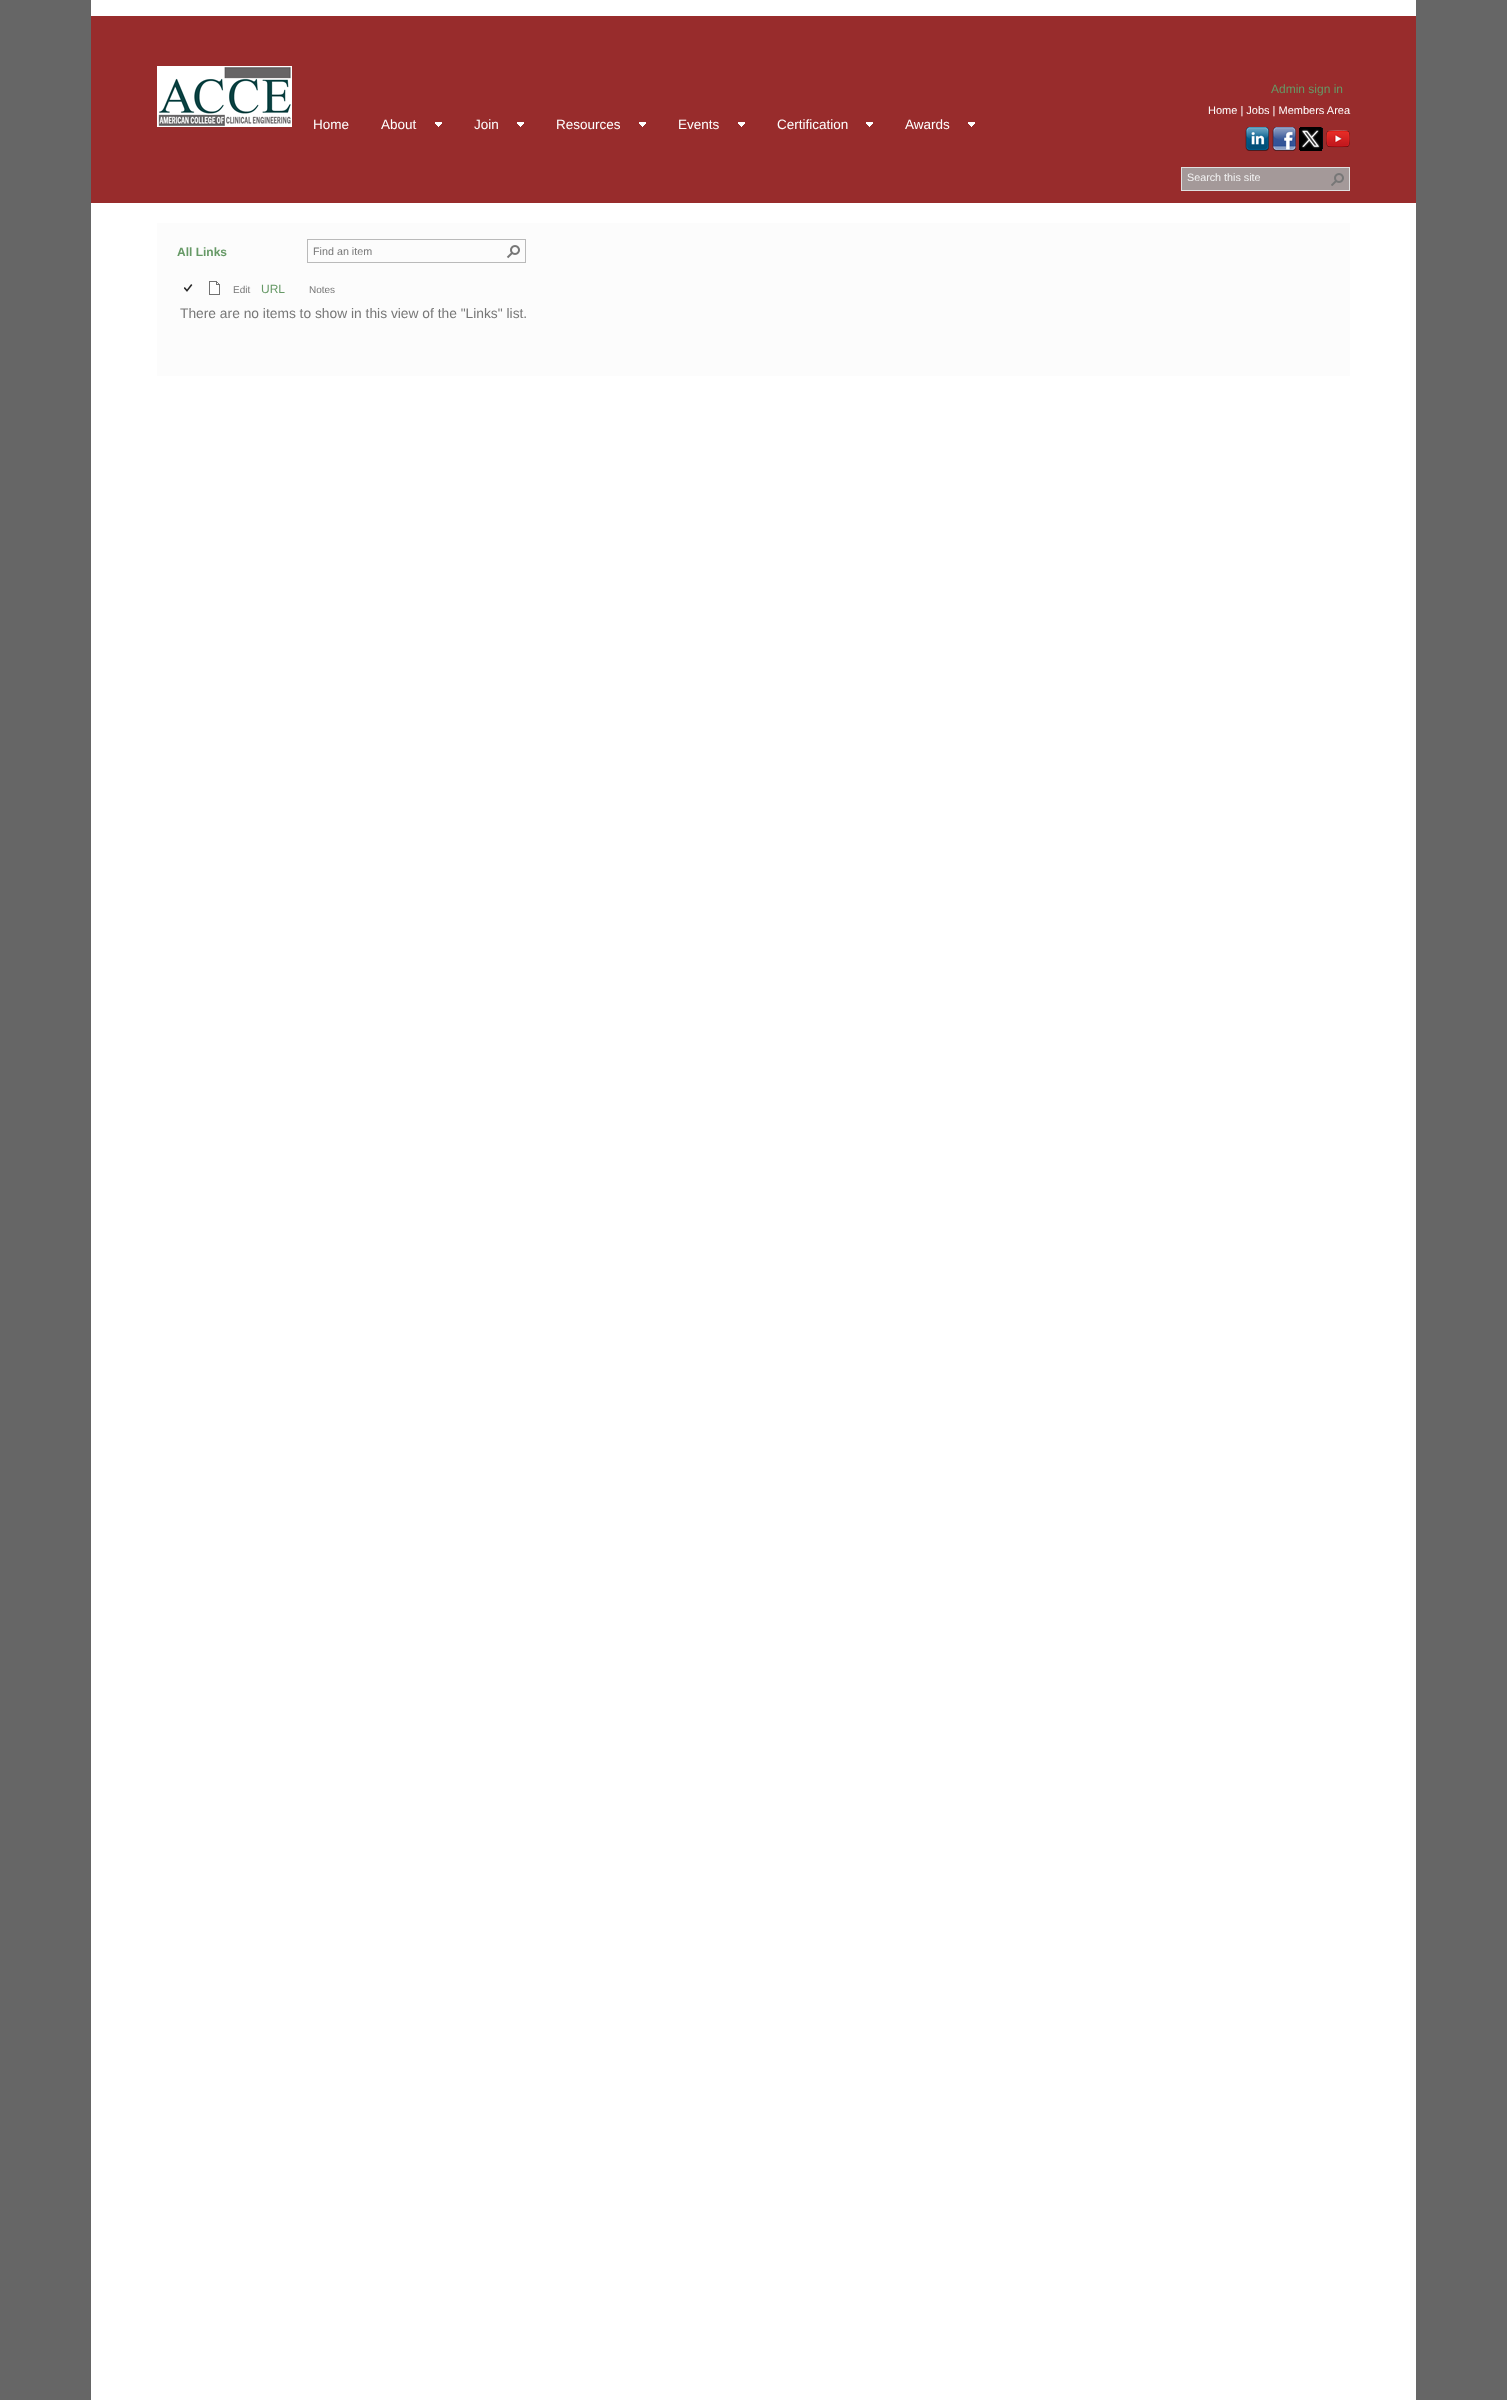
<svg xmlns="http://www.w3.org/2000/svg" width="1507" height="2400">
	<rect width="100%" height="100%" fill="#666666" />
	<rect x="91" y="0" width="1325" height="2400" fill="#FFFFFF" />
	<rect x="91" y="16" width="1325" height="187" fill="#982C2C" />
	<image x="157" y="66" width="135" height="61" href="assets/img1.png" />
	<g font-family="Liberation Sans" font-size="13.5" fill="#FFFFFF">
		<text x="313" y="129">Home</text>
		<text x="381" y="129">About</text>
	</g>
	<image x="435" y="122" width="7" height="5" href="assets/img2.png" />
	<text x="474" y="129" font-family="Liberation Sans" font-size="13.5" fill="#FFFFFF">Join</text>
	<image x="517" y="122" width="7" height="5" href="assets/img2.png" />
	<text x="556" y="129" font-family="Liberation Sans" font-size="13.5" fill="#FFFFFF">Resources</text>
	<image x="639" y="122" width="7" height="5" href="assets/img2.png" />
	<text x="678" y="129" font-family="Liberation Sans" font-size="13.5" fill="#FFFFFF">Events</text>
	<image x="738" y="122" width="7" height="5" href="assets/img2.png" />
	<text x="777" y="129" font-family="Liberation Sans" font-size="13.5" fill="#FFFFFF">Certification</text>
	<image x="866" y="122" width="7" height="5" href="assets/img2.png" />
	<text x="905" y="129" font-family="Liberation Sans" font-size="13.5" fill="#FFFFFF">Awards</text>
	<image x="968" y="122" width="7" height="5" href="assets/img2.png" />
	<text x="1271" y="93" font-family="Liberation Sans" font-size="12" fill="#669966">Admin sign in</text>
	<text x="1208" y="114" font-family="Liberation Sans" font-size="11" fill="#FFFFFF">Home | Jobs | Members Area</text>
	<image x="1245" y="127" width="24" height="24" href="assets/img3.png" />
	<image x="1272" y="127" width="24" height="24" href="assets/img4.png" />
	<image x="1299" y="127" width="24" height="24" href="assets/img5.png" />
	<image x="1326" y="130" width="24" height="18" href="assets/img6.png" />
	<rect x="1181.5" y="167.5" width="168" height="23" fill="#A49999" stroke="#E0E0E0" />
	<text x="1187" y="181" font-family="Liberation Sans" font-size="10.75" fill="#F3F3F3">Search this site</text>
	<image x="1331" y="173" width="13" height="13" href="assets/img7.png" />
	<rect x="157" y="223" width="1193" height="153" fill="#FCFCFC" />
	<text x="177" y="256" font-family="Liberation Sans" font-size="12" font-weight="700" fill="#669966">All Links</text>
	<rect x="307.5" y="239.5" width="218" height="23" fill="none" stroke="#BABABA" />
	<text x="313" y="255" font-family="Liberation Sans" font-size="10.75" fill="#777777">Find an item</text>
	<image x="506" y="245" width="14" height="14" href="assets/img8.png" />
	<image x="184" y="284" width="9" height="8" href="assets/img9.png" />
	<image x="209" y="281" width="11" height="14" href="assets/img10.png" />
	<text x="233" y="293" font-family="Liberation Sans" font-size="10" fill="#777777">Edit</text>
	<text x="261" y="293" font-family="Liberation Sans" font-size="12" fill="#669966">URL</text>
	<text x="309" y="293" font-family="Liberation Sans" font-size="10" fill="#777777">Notes</text>
	<text x="180" y="318" font-family="Liberation Sans" font-size="13.8" fill="#777777">There are no items to show in this view of the "Links" list.</text>
</svg>
